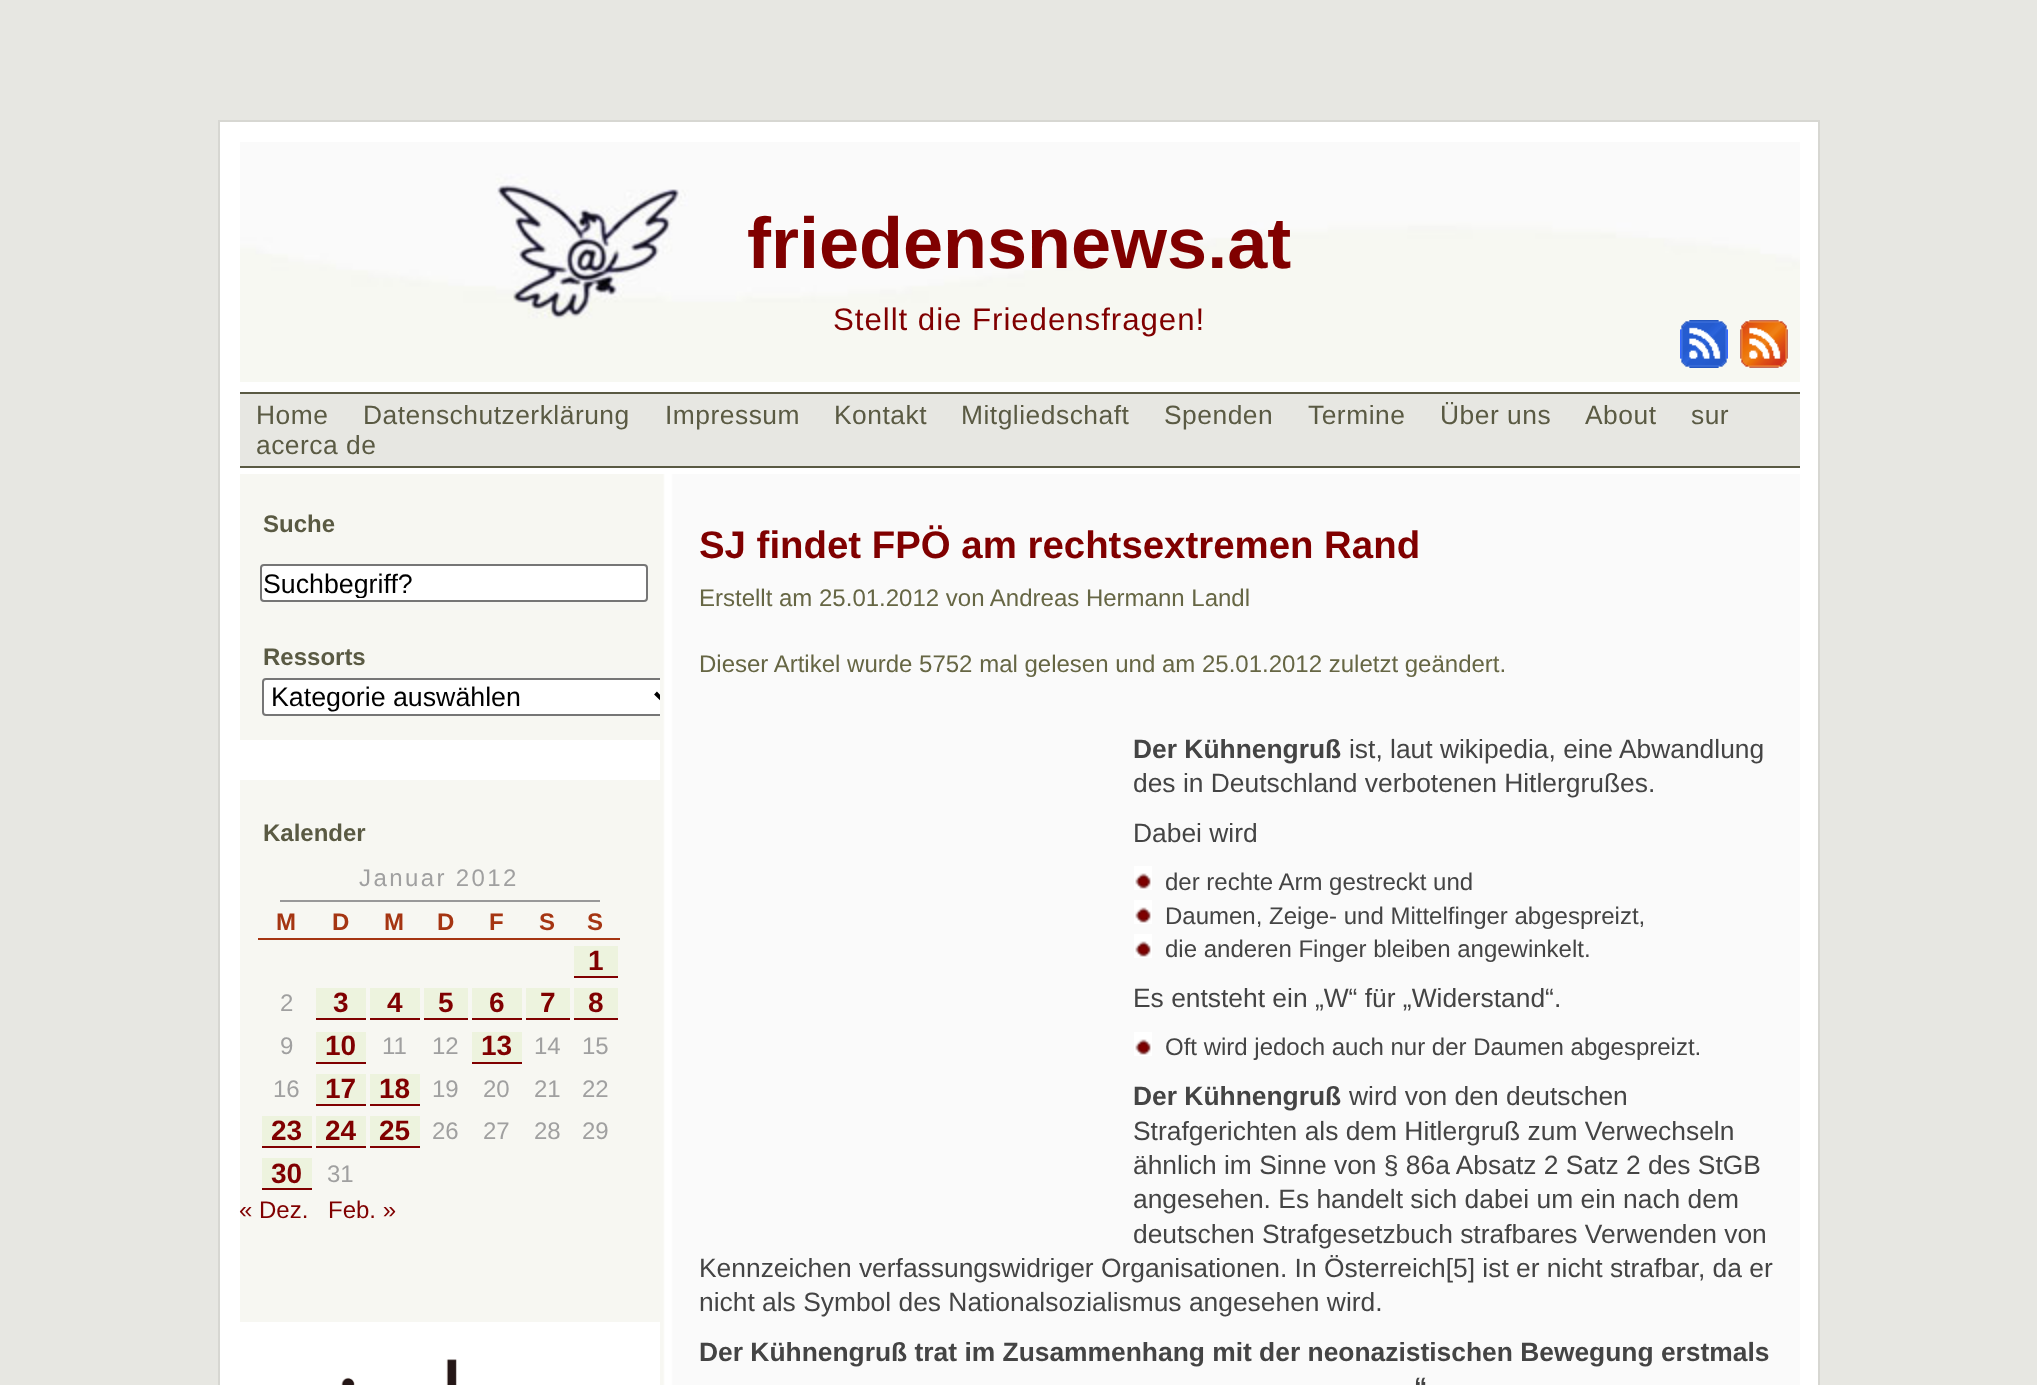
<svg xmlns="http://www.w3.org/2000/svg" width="2037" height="1385">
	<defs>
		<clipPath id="clip1"><rect x="264" y="568" width="380" height="30" /></clipPath>
		<clipPath id="clip2"><rect x="240" y="490" width="420" height="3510" /></clipPath>
	</defs>
	<rect width="100%" height="100%" fill="#E7E7E2" />
	<rect x="219" y="121" width="1600" height="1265" fill="#FFFFFF" stroke="#D7D7D2" stroke-width="2" />
	<image x="240" y="142" width="1560" height="240" href="assets/img1.png" />
	<text x="747" y="268" font-family="Liberation Sans" font-size="72" font-weight="700" fill="#800000">friedensnews.at</text>
	<text x="833" y="330" font-family="Liberation Sans" font-size="31.25" letter-spacing="0.95" fill="#800000">Stellt die Friedensfragen!</text>
	<image x="1680" y="320" width="48" height="48" href="assets/img2.png" />
	<image x="1740" y="320" width="48" height="48" href="assets/img3.png" />
	<rect x="240" y="394" width="1560" height="72" fill="#E7E7E2" />
	<rect x="240" y="392" width="1560" height="2" fill="#5A5A43" />
	<rect x="240" y="466" width="1560" height="2" fill="#5A5A43" />
	<g font-family="Liberation Sans" font-size="26.4" letter-spacing="0.5" fill="#5A5A43">
		<text x="256" y="424">Home</text>
		<text x="363" y="424">Datenschutzerklärung</text>
		<text x="665" y="424">Impressum</text>
		<text x="834" y="424">Kontakt</text>
		<text x="961" y="424">Mitgliedschaft</text>
		<text x="1164" y="424">Spenden</text>
		<text x="1308" y="424">Termine</text>
		<text x="1440" y="424">Über uns</text>
		<text x="1585" y="424">About</text>
		<text x="1691" y="424">sur</text>
		<text x="256" y="454">acerca de</text>
	</g>
	<image x="240" y="474" width="1560" height="911" href="assets/img4.png" />
	<text x="263" y="532" font-family="Liberation Sans" font-size="24" font-weight="700" fill="#5A5A43">Suche</text>
	<rect x="261" y="565" width="386" height="36" rx="3" fill="#FFFFFF" stroke="#767676" stroke-width="2" />
	<g clip-path="url(#clip1)">
		<text x="263" y="593" font-family="Liberation Sans" font-size="26.75" fill="#000000">Suchbegriff?</text>
	</g>
	<text x="263" y="665" font-family="Liberation Sans" font-size="24" font-weight="700" fill="#5A5A43">Ressorts</text>
	<path d="M266 678H660V716H266C264 716 262 714 262 712V682C262 680 264 678 266 678Z" fill="#FFFFFF" />
	<g clip-path="url(#clip2)">
		<rect x="263" y="679" width="418" height="36" rx="3" fill="none" stroke="#767676" stroke-width="2" />
		<path d="M655.5 693L663.5 701L671.5 693" fill="none" stroke="#000000" stroke-width="4" />
	</g>
	<text x="271" y="706" font-family="Liberation Sans" font-size="26.75" fill="#000000">Kategorie auswählen</text>
	<rect x="240" y="740" width="420" height="40" fill="#FFFFFF" />
	<text x="263" y="841" font-family="Liberation Sans" font-size="24" font-weight="700" fill="#5A5A43">Kalender</text>
	<rect x="280" y="900" width="320" height="2" fill="#999999" />
	<text x="359" y="886" font-family="Liberation Sans" font-size="24" letter-spacing="2.4" fill="#A0A0A0">Januar 2012</text>
	<rect x="258" y="938" width="362" height="2" fill="#A53512" />
	<g font-family="Liberation Sans" font-size="24" font-weight="700" fill="#A53512">
		<text x="276" y="930">M</text>
		<text x="332" y="930">D</text>
		<text x="384" y="930">M</text>
		<text x="437" y="930">D</text>
		<text x="489" y="930">F</text>
		<text x="539" y="930">S</text>
		<text x="587" y="930">S</text>
	</g>
	<rect x="574" y="946" width="44" height="30" fill="#EDF3DE" />
	<rect x="574" y="976" width="44" height="2" fill="#800000" />
	<text x="588" y="970" font-family="Liberation Sans" font-size="28" font-weight="700" fill="#800000">1</text>
	<text x="280" y="1011" font-family="Liberation Sans" font-size="24" fill="#A0A0A0">2</text>
	<rect x="316" y="988" width="50" height="30" fill="#EDF3DE" />
	<rect x="316" y="1018" width="50" height="2" fill="#800000" />
	<text x="333" y="1012" font-family="Liberation Sans" font-size="28" font-weight="700" fill="#800000">3</text>
	<rect x="370" y="988" width="50" height="30" fill="#EDF3DE" />
	<rect x="370" y="1018" width="50" height="2" fill="#800000" />
	<text x="387" y="1012" font-family="Liberation Sans" font-size="28" font-weight="700" fill="#800000">4</text>
	<rect x="424" y="988" width="44" height="30" fill="#EDF3DE" />
	<rect x="424" y="1018" width="44" height="2" fill="#800000" />
	<text x="438" y="1012" font-family="Liberation Sans" font-size="28" font-weight="700" fill="#800000">5</text>
	<rect x="472" y="988" width="50" height="30" fill="#EDF3DE" />
	<rect x="472" y="1018" width="50" height="2" fill="#800000" />
	<text x="489" y="1012" font-family="Liberation Sans" font-size="28" font-weight="700" fill="#800000">6</text>
	<rect x="526" y="988" width="44" height="30" fill="#EDF3DE" />
	<rect x="526" y="1018" width="44" height="2" fill="#800000" />
	<text x="540" y="1012" font-family="Liberation Sans" font-size="28" font-weight="700" fill="#800000">7</text>
	<rect x="574" y="988" width="44" height="30" fill="#EDF3DE" />
	<rect x="574" y="1018" width="44" height="2" fill="#800000" />
	<text x="588" y="1012" font-family="Liberation Sans" font-size="28" font-weight="700" fill="#800000">8</text>
	<text x="280" y="1054" font-family="Liberation Sans" font-size="24" fill="#A0A0A0">9</text>
	<rect x="316" y="1032" width="50" height="30" fill="#EDF3DE" />
	<rect x="316" y="1062" width="50" height="2" fill="#800000" />
	<text x="325" y="1055" font-family="Liberation Sans" font-size="28" font-weight="700" fill="#800000">10</text>
	<g font-family="Liberation Sans" font-size="24" fill="#A0A0A0">
		<text x="382" y="1054">11</text>
		<text x="432" y="1054">12</text>
	</g>
	<rect x="472" y="1032" width="50" height="30" fill="#EDF3DE" />
	<rect x="472" y="1062" width="50" height="2" fill="#800000" />
	<text x="481" y="1055" font-family="Liberation Sans" font-size="28" font-weight="700" fill="#800000">13</text>
	<g font-family="Liberation Sans" font-size="24" fill="#A0A0A0">
		<text x="534" y="1054">14</text>
		<text x="582" y="1054">15</text>
		<text x="273" y="1097">16</text>
	</g>
	<rect x="316" y="1074" width="50" height="30" fill="#EDF3DE" />
	<rect x="316" y="1104" width="50" height="2" fill="#800000" />
	<text x="325" y="1098" font-family="Liberation Sans" font-size="28" font-weight="700" fill="#800000">17</text>
	<rect x="370" y="1074" width="50" height="30" fill="#EDF3DE" />
	<rect x="370" y="1104" width="50" height="2" fill="#800000" />
	<text x="379" y="1098" font-family="Liberation Sans" font-size="28" font-weight="700" fill="#800000">18</text>
	<g font-family="Liberation Sans" font-size="24" fill="#A0A0A0">
		<text x="432" y="1097">19</text>
		<text x="483" y="1097">20</text>
		<text x="534" y="1097">21</text>
		<text x="582" y="1097">22</text>
	</g>
	<rect x="262" y="1116" width="50" height="30" fill="#EDF3DE" />
	<rect x="262" y="1146" width="50" height="2" fill="#800000" />
	<text x="271" y="1140" font-family="Liberation Sans" font-size="28" font-weight="700" fill="#800000">23</text>
	<rect x="316" y="1116" width="50" height="30" fill="#EDF3DE" />
	<rect x="316" y="1146" width="50" height="2" fill="#800000" />
	<text x="325" y="1140" font-family="Liberation Sans" font-size="28" font-weight="700" fill="#800000">24</text>
	<rect x="370" y="1116" width="50" height="30" fill="#EDF3DE" />
	<rect x="370" y="1146" width="50" height="2" fill="#800000" />
	<text x="379" y="1140" font-family="Liberation Sans" font-size="28" font-weight="700" fill="#800000">25</text>
	<g font-family="Liberation Sans" font-size="24" fill="#A0A0A0">
		<text x="432" y="1139">26</text>
		<text x="483" y="1139">27</text>
		<text x="534" y="1139">28</text>
		<text x="582" y="1139">29</text>
	</g>
	<rect x="262" y="1158" width="50" height="30" fill="#EDF3DE" />
	<rect x="262" y="1188" width="50" height="2" fill="#800000" />
	<text x="271" y="1183" font-family="Liberation Sans" font-size="28" font-weight="700" fill="#800000">30</text>
	<text x="327" y="1182" font-family="Liberation Sans" font-size="24" fill="#A0A0A0">31</text>
	<g font-family="Liberation Sans" font-size="24" fill="#800000">
		<text x="239" y="1218">« Dez.</text>
		<text x="328" y="1218">Feb. »</text>
	</g>
	<rect x="240" y="1322" width="420" height="63" fill="#FFFFFF" />
	<image x="341" y="1359" width="116" height="26" href="assets/img5.png" />
	<text x="699" y="558" font-family="Liberation Sans" font-size="38.4" font-weight="700" fill="#800000">SJ findet FPÖ am rechtsextremen Rand</text>
	<g font-family="Liberation Sans" font-size="24" fill="#666644">
		<text x="699" y="606">Erstellt am 25.01.2012 von Andreas Hermann Landl</text>
		<text x="699" y="672">Dieser Artikel wurde 5752 mal gelesen und am 25.01.2012 zuletzt geändert.</text>
	</g>
	<text x="1133" y="758" font-family="Liberation Sans" font-size="26.4" font-weight="700" fill="#444444">Der Kühnengruß</text>
	<g font-family="Liberation Sans" font-size="26.4" fill="#444444">
		<text x="1349" y="758">ist, laut wikipedia, eine Abwandlung</text>
		<text x="1133" y="792">des in Deutschland verbotenen Hitlergrußes.</text>
		<text x="1133" y="842">Dabei wird</text>
	</g>
	<image x="1134" y="866" width="18" height="24" href="assets/img6.png" />
	<text x="1165" y="890" font-family="Liberation Sans" font-size="24" fill="#444444">der rechte Arm gestreckt und</text>
	<image x="1134" y="900" width="18" height="24" href="assets/img6.png" />
	<text x="1165" y="924" font-family="Liberation Sans" font-size="24" fill="#444444">Daumen, Zeige- und Mittelfinger abgespreizt,</text>
	<image x="1134" y="934" width="18" height="24" href="assets/img6.png" />
	<text x="1165" y="957" font-family="Liberation Sans" font-size="24" fill="#444444">die anderen Finger bleiben angewinkelt.</text>
	<text x="1133" y="1007" font-family="Liberation Sans" font-size="26.4" fill="#444444">Es entsteht ein „W“ für „Widerstand“.</text>
	<image x="1134" y="1032" width="18" height="24" href="assets/img6.png" />
	<text x="1165" y="1055" font-family="Liberation Sans" font-size="24" fill="#444444">Oft wird jedoch auch nur der Daumen abgespreizt.</text>
	<text x="1133" y="1105" font-family="Liberation Sans" font-size="26.4" font-weight="700" fill="#444444">Der Kühnengruß</text>
	<g font-family="Liberation Sans" font-size="26.4" fill="#444444">
		<text x="1349" y="1105">wird von den deutschen</text>
		<text x="1133" y="1140">Strafgerichten als dem Hitlergruß zum Verwechseln</text>
		<text x="1133" y="1174">ähnlich im Sinne von § 86a Absatz 2 Satz 2 des StGB</text>
		<text x="1133" y="1208">angesehen. Es handelt sich dabei um ein nach dem</text>
		<text x="1133" y="1243">deutschen Strafgesetzbuch strafbares Verwenden von</text>
		<text x="699" y="1277">Kennzeichen verfassungswidriger Organisationen. In Österreich[5] ist er nicht strafbar, da er</text>
		<text x="699" y="1311">nicht als Symbol des Nationalsozialismus angesehen wird.</text>
	</g>
	<g font-family="Liberation Sans" font-size="26.4" font-weight="700" fill="#444444">
		<text x="699" y="1361">Der Kühnengruß trat im Zusammenhang mit der neonazistischen Bewegung erstmals</text>
		<text x="1414" y="1396">“</text>
	</g>
</svg>
